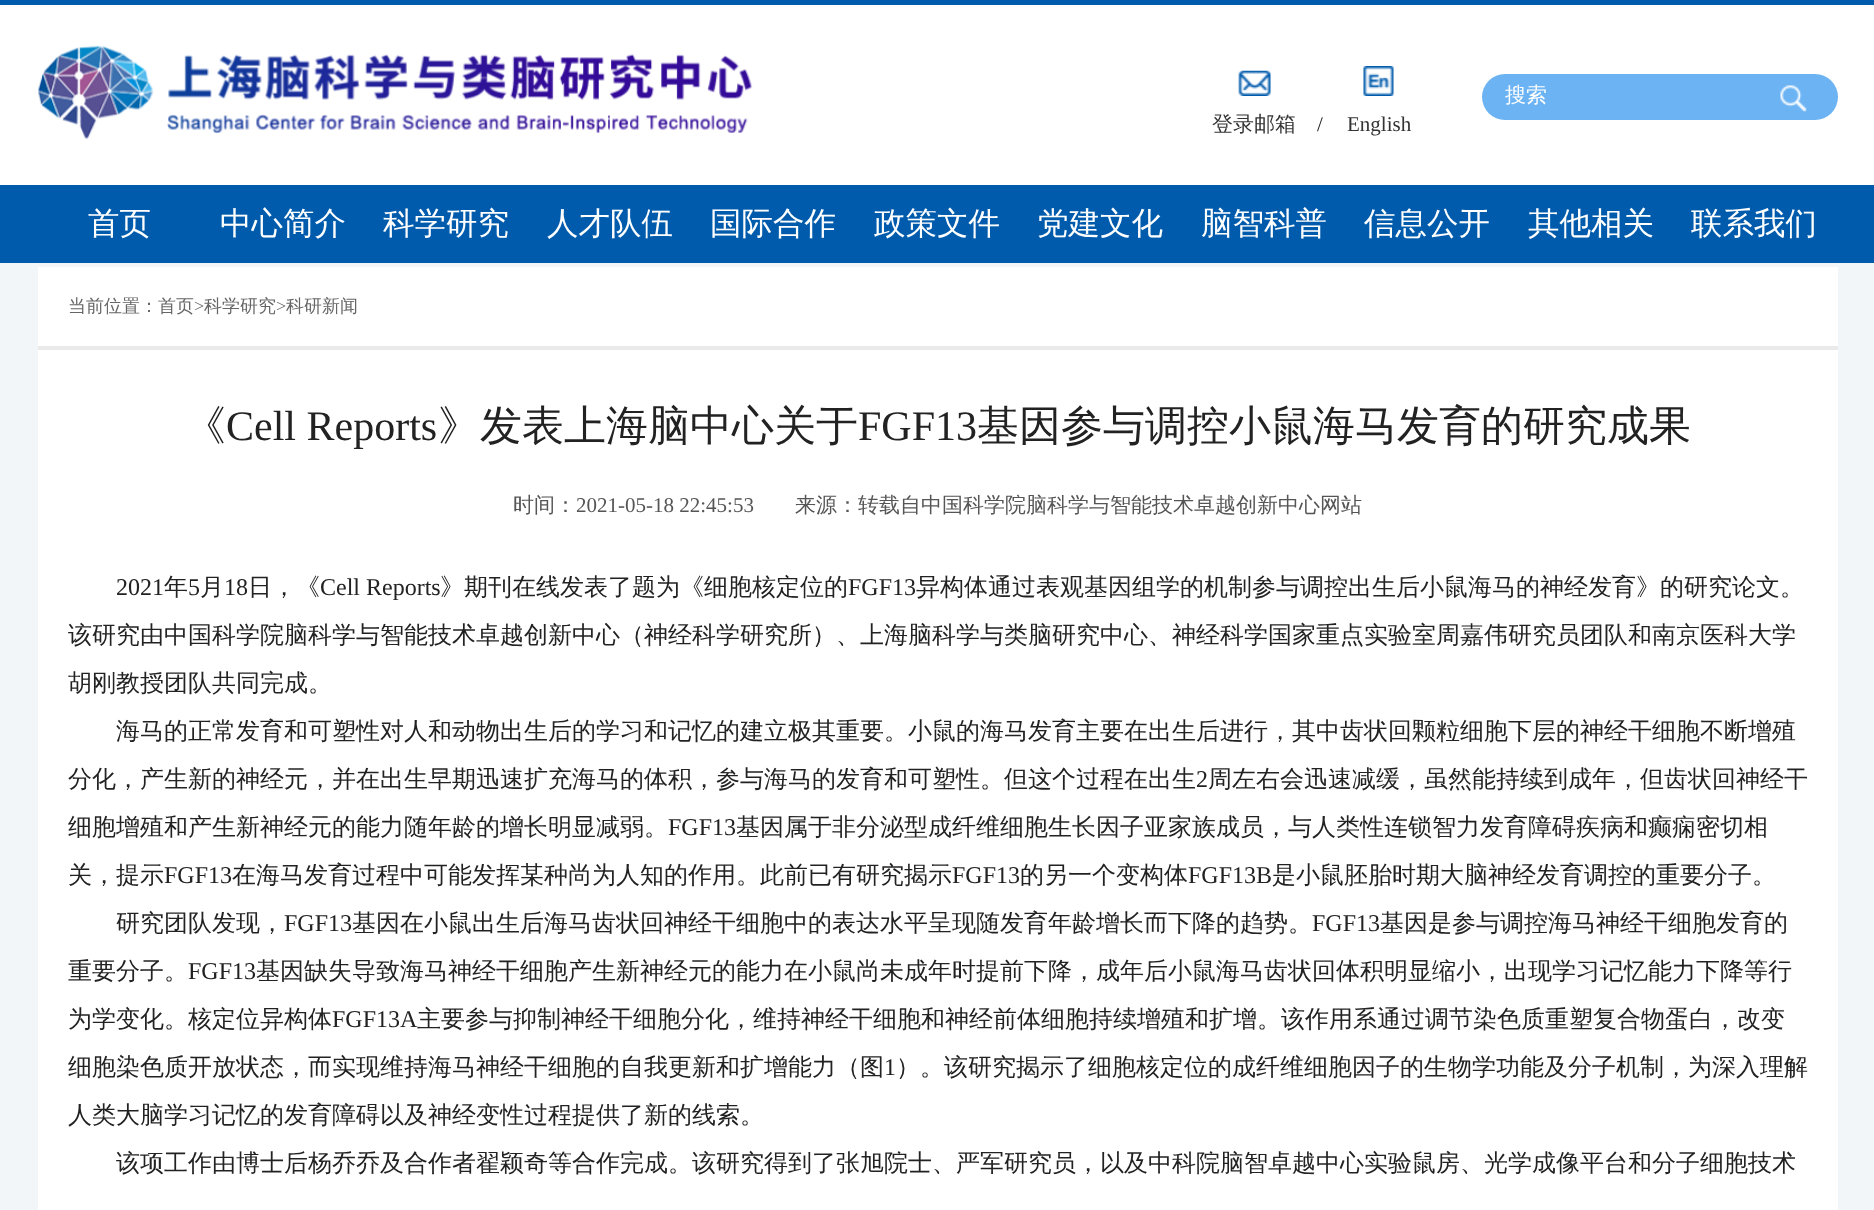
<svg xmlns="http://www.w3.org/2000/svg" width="1874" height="1210">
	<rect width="100%" height="100%" fill="#F3F6F9" />
	<rect x="0" y="5" width="1874" height="180" fill="#FFFFFF" />
	<rect x="0" y="0" width="1874" height="5" fill="#005BAC" />
	<image x="38" y="45" width="715" height="94" href="assets/img1.png" />
	<rect x="1482" y="74" width="356" height="46" rx="23" fill="#6CB3F3" />
	<text x="1505" y="102" font-family="WenQuanYi Zen Hei" font-size="21" font-weight="500" fill="#FFFFFF">搜索</text>
	<image x="1780" y="85" width="27" height="27" href="assets/img2.png" />
	<image x="1238" y="70" width="33" height="26" href="assets/img3.png" />
	<text x="1212" y="131" font-family="WenQuanYi Zen Hei" font-size="21" font-weight="500" fill="#333333">登录邮箱</text>
	<text x="1317" y="131" font-family="Liberation Serif" font-size="21" fill="#222222">/</text>
	<image x="1363" y="66" width="31" height="30" href="assets/img4.png" />
	<text x="1347" y="131" font-family="Liberation Serif" font-size="21" fill="#333333">English</text>
	<rect x="0" y="185" width="1874" height="78" fill="#005BAC" />
	<g font-family="WenQuanYi Zen Hei" font-size="31.5" font-weight="500" fill="#FFFFFF">
		<text x="88" y="234">首页</text>
		<text x="220" y="234">中心简介</text>
		<text x="383" y="234">科学研究</text>
		<text x="547" y="234">人才队伍</text>
		<text x="710" y="234">国际合作</text>
		<text x="874" y="234">政策文件</text>
		<text x="1037" y="234">党建文化</text>
		<text x="1201" y="234">脑智科普</text>
		<text x="1364" y="234">信息公开</text>
		<text x="1528" y="234">其他相关</text>
		<text x="1691" y="234">联系我们</text>
	</g>
	<rect x="38" y="267" width="1800" height="79" fill="#FFFFFF" />
	<rect x="38" y="346" width="1800" height="4" fill="#EAEAEA" />
	<text x="68" y="312" font-family="WenQuanYi Zen Hei" font-size="18" font-weight="500" fill="#666666">当前位置：首页</text>
	<text x="194" y="312" font-family="Liberation Serif" font-size="18" fill="#666666">&gt;</text>
	<text x="204" y="312" font-family="WenQuanYi Zen Hei" font-size="18" font-weight="500" fill="#666666">科学研究</text>
	<text x="276" y="312" font-family="Liberation Serif" font-size="18" fill="#666666">&gt;</text>
	<text x="286" y="312" font-family="WenQuanYi Zen Hei" font-size="18" font-weight="500" fill="#666666">科研新闻</text>
	<rect x="38" y="350" width="1800" height="860" fill="#FFFFFF" />
	<text x="184" y="440" font-family="WenQuanYi Zen Hei" font-size="42" font-weight="500" fill="#222222">《</text>
	<text x="226" y="440" font-family="Liberation Serif" font-size="42" fill="#222222">Cell Reports</text>
	<text x="438" y="440" font-family="WenQuanYi Zen Hei" font-size="42" font-weight="500" fill="#222222">》发表上海脑中心关于</text>
	<text x="858" y="440" font-family="Liberation Serif" font-size="42" fill="#222222">FGF13</text>
	<text x="977" y="440" font-family="WenQuanYi Zen Hei" font-size="42" font-weight="500" fill="#222222">基因参与调控小鼠海马发育的研究成果</text>
	<text x="513" y="512" font-family="WenQuanYi Zen Hei" font-size="21" font-weight="500" fill="#555555">时间：</text>
	<text x="576" y="512" font-family="Liberation Serif" font-size="21" fill="#555555">2021-05-18 22:45:53</text>
	<text x="795" y="512" font-family="WenQuanYi Zen Hei" font-size="21" font-weight="500" fill="#555555">来源：转载自中国科学院脑科学与智能技术卓越创新中心网站</text>
	<text x="116" y="595" font-family="Liberation Serif" font-size="24" fill="#222222">2021</text>
	<text x="164" y="595" font-family="WenQuanYi Zen Hei" font-size="24" font-weight="500" fill="#222222">年</text>
	<text x="188" y="595" font-family="Liberation Serif" font-size="24" fill="#222222">5</text>
	<text x="200" y="595" font-family="WenQuanYi Zen Hei" font-size="24" font-weight="500" fill="#222222">月</text>
	<text x="224" y="595" font-family="Liberation Serif" font-size="24" fill="#222222">18</text>
	<text x="248" y="595" font-family="WenQuanYi Zen Hei" font-size="24" font-weight="500" fill="#222222">日，《</text>
	<text x="320" y="595" font-family="Liberation Serif" font-size="24" fill="#222222">Cell Reports</text>
	<text x="440" y="595" font-family="WenQuanYi Zen Hei" font-size="24" font-weight="500" fill="#222222">》期刊在线发表了题为《细胞核定位的</text>
	<text x="848" y="595" font-family="Liberation Serif" font-size="24" fill="#222222">FGF13</text>
	<g font-family="WenQuanYi Zen Hei" font-size="24" font-weight="500" fill="#222222">
		<text x="916" y="595">异构体通过表观基因组学的机制参与调控出生后小鼠海马的神经发育》的研究论文。</text>
		<text x="68" y="643">该研究由中国科学院脑科学与智能技术卓越创新中心（神经科学研究所）、上海脑科学与类脑研究中心、神经科学国家重点实验室周嘉伟研究员团队和南京医科大学</text>
		<text x="68" y="691">胡刚教授团队共同完成。</text>
		<text x="116" y="739">海马的正常发育和可塑性对人和动物出生后的学习和记忆的建立极其重要。小鼠的海马发育主要在出生后进行，其中齿状回颗粒细胞下层的神经干细胞不断增殖</text>
		<text x="68" y="787">分化，产生新的神经元，并在出生早期迅速扩充海马的体积，参与海马的发育和可塑性。但这个过程在出生</text>
	</g>
	<text x="1196" y="787" font-family="Liberation Serif" font-size="24" fill="#222222">2</text>
	<g font-family="WenQuanYi Zen Hei" font-size="24" font-weight="500" fill="#222222">
		<text x="1208" y="787">周左右会迅速减缓，虽然能持续到成年，但齿状回神经干</text>
		<text x="68" y="835">细胞增殖和产生新神经元的能力随年龄的增长明显减弱。</text>
	</g>
	<text x="668" y="835" font-family="Liberation Serif" font-size="24" fill="#222222">FGF13</text>
	<g font-family="WenQuanYi Zen Hei" font-size="24" font-weight="500" fill="#222222">
		<text x="736" y="835">基因属于非分泌型成纤维细胞生长因子亚家族成员，与人类性连锁智力发育障碍疾病和癫痫密切相</text>
		<text x="68" y="883">关，提示</text>
	</g>
	<text x="164" y="883" font-family="Liberation Serif" font-size="24" fill="#222222">FGF13</text>
	<text x="232" y="883" font-family="WenQuanYi Zen Hei" font-size="24" font-weight="500" fill="#222222">在海马发育过程中可能发挥某种尚为人知的作用。此前已有研究揭示</text>
	<text x="952" y="883" font-family="Liberation Serif" font-size="24" fill="#222222">FGF13</text>
	<text x="1020" y="883" font-family="WenQuanYi Zen Hei" font-size="24" font-weight="500" fill="#222222">的另一个变构体</text>
	<text x="1188" y="883" font-family="Liberation Serif" font-size="24" fill="#222222">FGF13B</text>
	<g font-family="WenQuanYi Zen Hei" font-size="24" font-weight="500" fill="#222222">
		<text x="1272" y="883">是小鼠胚胎时期大脑神经发育调控的重要分子。</text>
		<text x="116" y="931">研究团队发现，</text>
	</g>
	<text x="284" y="931" font-family="Liberation Serif" font-size="24" fill="#222222">FGF13</text>
	<text x="352" y="931" font-family="WenQuanYi Zen Hei" font-size="24" font-weight="500" fill="#222222">基因在小鼠出生后海马齿状回神经干细胞中的表达水平呈现随发育年龄增长而下降的趋势。</text>
	<text x="1312" y="931" font-family="Liberation Serif" font-size="24" fill="#222222">FGF13</text>
	<g font-family="WenQuanYi Zen Hei" font-size="24" font-weight="500" fill="#222222">
		<text x="1380" y="931">基因是参与调控海马神经干细胞发育的</text>
		<text x="68" y="979">重要分子。</text>
	</g>
	<text x="188" y="979" font-family="Liberation Serif" font-size="24" fill="#222222">FGF13</text>
	<g font-family="WenQuanYi Zen Hei" font-size="24" font-weight="500" fill="#222222">
		<text x="256" y="979">基因缺失导致海马神经干细胞产生新神经元的能力在小鼠尚未成年时提前下降，成年后小鼠海马齿状回体积明显缩小，出现学习记忆能力下降等行</text>
		<text x="68" y="1027">为学变化。核定位异构体</text>
	</g>
	<text x="332" y="1027" font-family="Liberation Serif" font-size="24" fill="#222222">FGF13A</text>
	<g font-family="WenQuanYi Zen Hei" font-size="24" font-weight="500" fill="#222222">
		<text x="417" y="1027">主要参与抑制神经干细胞分化，维持神经干细胞和神经前体细胞持续增殖和扩增。该作用系通过调节染色质重塑复合物蛋白，改变</text>
		<text x="68" y="1075">细胞染色质开放状态，而实现维持海马神经干细胞的自我更新和扩增能力（图</text>
	</g>
	<text x="884" y="1075" font-family="Liberation Serif" font-size="24" fill="#222222">1</text>
	<g font-family="WenQuanYi Zen Hei" font-size="24" font-weight="500" fill="#222222">
		<text x="896" y="1075">）。该研究揭示了细胞核定位的成纤维细胞因子的生物学功能及分子机制，为深入理解</text>
		<text x="68" y="1123">人类大脑学习记忆的发育障碍以及神经变性过程提供了新的线索。</text>
		<text x="116" y="1171">该项工作由博士后杨乔乔及合作者翟颖奇等合作完成。该研究得到了张旭院士、严军研究员，以及中科院脑智卓越中心实验鼠房、光学成像平台和分子细胞技术</text>
	</g>
</svg>
